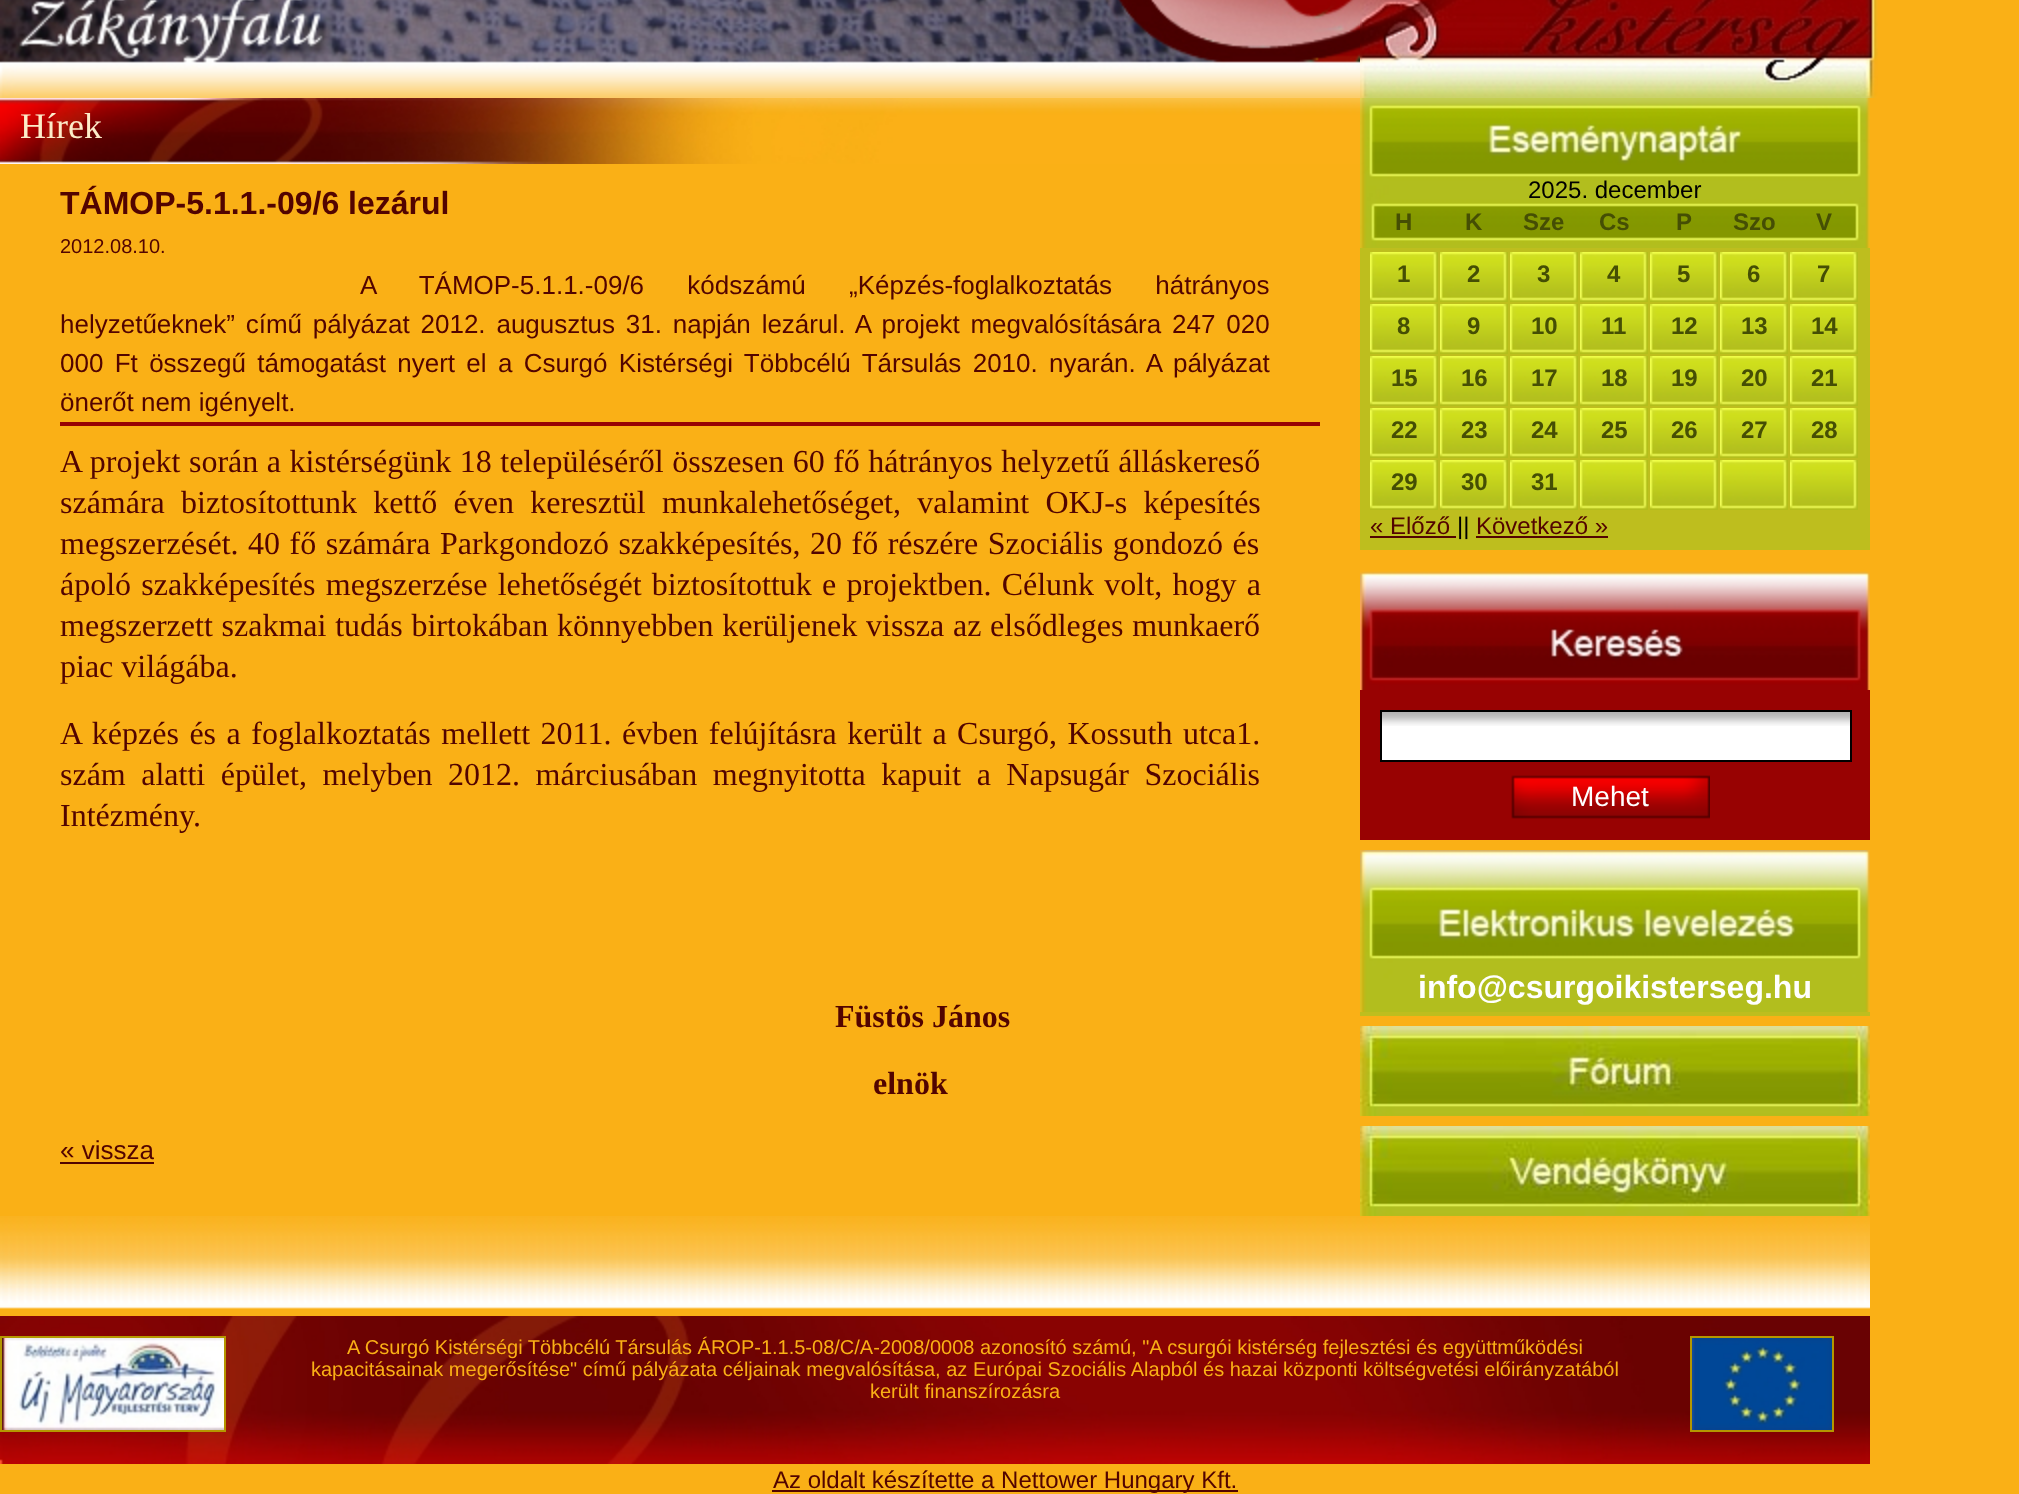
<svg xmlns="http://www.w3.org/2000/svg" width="2019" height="1494">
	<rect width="100%" height="100%" fill="#FAB016" />
	<image x="1360" y="0" width="518" height="98" href="assets/img1.png" />
	<image x="0" y="0" width="1360" height="98" href="assets/img2.png" />
	<image x="0" y="98" width="1360" height="66" href="assets/img3.png" />
	<text x="20" y="138" font-family="Liberation Serif" font-size="36" fill="#FDECC9">Hírek</text>
	<rect x="60" y="422" width="1260" height="4" fill="#980203" />
	<text x="60" y="214" font-family="Liberation Sans" font-size="32" font-weight="700" fill="#520400">TÁMOP-5.1.1.-09/6 lezárul</text>
	<text x="60" y="253" font-family="Liberation Sans" font-size="20" fill="#520400">2012.08.10.</text>
	<g font-family="Liberation Sans" font-size="26" fill="#520400">
		<text x="360" y="294" word-spacing="36">A TÁMOP-5.1.1.-09/6 kódszámú „Képzés-foglalkoztatás hátrányos</text>
		<text x="60" y="333" word-spacing="3.6">helyzetűeknek” című pályázat 2012. augusztus 31. napján lezárul. A projekt megvalósítására 247 020</text>
		<text x="60" y="372" word-spacing="4.1">000 Ft összegű támogatást nyert el a Csurgó Kistérségi Többcélú Társulás 2010. nyarán. A pályázat</text>
		<text x="60" y="411">önerőt nem igényelt.</text>
	</g>
	<g font-family="Liberation Serif" font-size="32" fill="#520400">
		<text x="60" y="472" word-spacing="0.5">A projekt során a kistérségünk 18 településéről összesen 60 fő hátrányos helyzetű álláskereső</text>
		<text x="60" y="513" word-spacing="8.25">számára biztosítottunk kettő éven keresztül munkalehetőséget, valamint OKJ-s képesítés</text>
		<text x="60" y="554" word-spacing="1.5">megszerzését. 40 fő számára Parkgondozó szakképesítés, 20 fő részére Szociális gondozó és</text>
		<text x="60" y="595" word-spacing="2.25">ápoló szakképesítés megszerzése lehetőségét biztosítottuk e projektben. Célunk volt, hogy a</text>
		<text x="60" y="636" word-spacing="0.75">megszerzett szakmai tudás birtokában könnyebben kerüljenek vissza az elsődleges munkaerő</text>
		<text x="60" y="677">piac világába.</text>
		<text x="60" y="744" word-spacing="2.5">A képzés és a foglalkoztatás mellett 2011. évben felújításra került a Csurgó, Kossuth utca1.</text>
		<text x="60" y="785" word-spacing="7.5">szám alatti épület, melyben 2012. márciusában megnyitotta kapuit a Napsugár Szociális</text>
		<text x="60" y="826">Intézmény.</text>
	</g>
	<g font-family="Liberation Serif" font-size="32" font-weight="700" fill="#520400">
		<text x="835" y="1027">Füstös János</text>
		<text x="873" y="1094">elnök</text>
	</g>
	<text x="60" y="1159" font-family="Liberation Sans" font-size="26" fill="#520400">« vissza</text>
	<rect x="60" y="1162" width="94" height="2" fill="#520400" />
	<rect x="1360" y="248" width="510" height="302" fill="#BEBE1E" />
	<image x="1360" y="98" width="510" height="150" href="assets/img4.png" />
	<text x="1528" y="198" font-family="Liberation Sans" font-size="24" fill="#000000">2025. december</text>
	<g font-family="Liberation Sans" font-size="24" font-weight="700" fill="#454E04">
		<text x="1395" y="230">H</text>
		<text x="1465" y="230">K</text>
		<text x="1523" y="230">Sze</text>
		<text x="1599" y="230">Cs</text>
		<text x="1676" y="230">P</text>
		<text x="1733" y="230">Szo</text>
		<text x="1816" y="230">V</text>
	</g>
	<image x="1370" y="252" width="68" height="50" href="assets/img5.png" />
	<text x="1397" y="282" font-family="Liberation Sans" font-size="24" font-weight="700" fill="#454E04">1</text>
	<image x="1440" y="252" width="68" height="50" href="assets/img5.png" />
	<text x="1467" y="282" font-family="Liberation Sans" font-size="24" font-weight="700" fill="#454E04">2</text>
	<image x="1510" y="252" width="68" height="50" href="assets/img5.png" />
	<text x="1537" y="282" font-family="Liberation Sans" font-size="24" font-weight="700" fill="#454E04">3</text>
	<image x="1580" y="252" width="68" height="50" href="assets/img5.png" />
	<text x="1607" y="282" font-family="Liberation Sans" font-size="24" font-weight="700" fill="#454E04">4</text>
	<image x="1650" y="252" width="68" height="50" href="assets/img5.png" />
	<text x="1677" y="282" font-family="Liberation Sans" font-size="24" font-weight="700" fill="#454E04">5</text>
	<image x="1720" y="252" width="68" height="50" href="assets/img5.png" />
	<text x="1747" y="282" font-family="Liberation Sans" font-size="24" font-weight="700" fill="#454E04">6</text>
	<image x="1790" y="252" width="68" height="50" href="assets/img5.png" />
	<text x="1817" y="282" font-family="Liberation Sans" font-size="24" font-weight="700" fill="#454E04">7</text>
	<image x="1370" y="304" width="68" height="50" href="assets/img5.png" />
	<text x="1397" y="334" font-family="Liberation Sans" font-size="24" font-weight="700" fill="#454E04">8</text>
	<image x="1440" y="304" width="68" height="50" href="assets/img5.png" />
	<text x="1467" y="334" font-family="Liberation Sans" font-size="24" font-weight="700" fill="#454E04">9</text>
	<image x="1510" y="304" width="68" height="50" href="assets/img5.png" />
	<text x="1531" y="334" font-family="Liberation Sans" font-size="24" font-weight="700" fill="#454E04">10</text>
	<image x="1580" y="304" width="68" height="50" href="assets/img5.png" />
	<text x="1601" y="334" font-family="Liberation Sans" font-size="24" font-weight="700" fill="#454E04">11</text>
	<image x="1650" y="304" width="68" height="50" href="assets/img5.png" />
	<text x="1671" y="334" font-family="Liberation Sans" font-size="24" font-weight="700" fill="#454E04">12</text>
	<image x="1720" y="304" width="68" height="50" href="assets/img5.png" />
	<text x="1741" y="334" font-family="Liberation Sans" font-size="24" font-weight="700" fill="#454E04">13</text>
	<image x="1790" y="304" width="68" height="50" href="assets/img5.png" />
	<text x="1811" y="334" font-family="Liberation Sans" font-size="24" font-weight="700" fill="#454E04">14</text>
	<image x="1370" y="356" width="68" height="50" href="assets/img5.png" />
	<text x="1391" y="386" font-family="Liberation Sans" font-size="24" font-weight="700" fill="#454E04">15</text>
	<image x="1440" y="356" width="68" height="50" href="assets/img5.png" />
	<text x="1461" y="386" font-family="Liberation Sans" font-size="24" font-weight="700" fill="#454E04">16</text>
	<image x="1510" y="356" width="68" height="50" href="assets/img5.png" />
	<text x="1531" y="386" font-family="Liberation Sans" font-size="24" font-weight="700" fill="#454E04">17</text>
	<image x="1580" y="356" width="68" height="50" href="assets/img5.png" />
	<text x="1601" y="386" font-family="Liberation Sans" font-size="24" font-weight="700" fill="#454E04">18</text>
	<image x="1650" y="356" width="68" height="50" href="assets/img5.png" />
	<text x="1671" y="386" font-family="Liberation Sans" font-size="24" font-weight="700" fill="#454E04">19</text>
	<image x="1720" y="356" width="68" height="50" href="assets/img5.png" />
	<text x="1741" y="386" font-family="Liberation Sans" font-size="24" font-weight="700" fill="#454E04">20</text>
	<image x="1790" y="356" width="68" height="50" href="assets/img5.png" />
	<text x="1811" y="386" font-family="Liberation Sans" font-size="24" font-weight="700" fill="#454E04">21</text>
	<image x="1370" y="408" width="68" height="50" href="assets/img5.png" />
	<text x="1391" y="438" font-family="Liberation Sans" font-size="24" font-weight="700" fill="#454E04">22</text>
	<image x="1440" y="408" width="68" height="50" href="assets/img5.png" />
	<text x="1461" y="438" font-family="Liberation Sans" font-size="24" font-weight="700" fill="#454E04">23</text>
	<image x="1510" y="408" width="68" height="50" href="assets/img5.png" />
	<text x="1531" y="438" font-family="Liberation Sans" font-size="24" font-weight="700" fill="#454E04">24</text>
	<image x="1580" y="408" width="68" height="50" href="assets/img5.png" />
	<text x="1601" y="438" font-family="Liberation Sans" font-size="24" font-weight="700" fill="#454E04">25</text>
	<image x="1650" y="408" width="68" height="50" href="assets/img5.png" />
	<text x="1671" y="438" font-family="Liberation Sans" font-size="24" font-weight="700" fill="#454E04">26</text>
	<image x="1720" y="408" width="68" height="50" href="assets/img5.png" />
	<text x="1741" y="438" font-family="Liberation Sans" font-size="24" font-weight="700" fill="#454E04">27</text>
	<image x="1790" y="408" width="68" height="50" href="assets/img5.png" />
	<text x="1811" y="438" font-family="Liberation Sans" font-size="24" font-weight="700" fill="#454E04">28</text>
	<image x="1370" y="460" width="68" height="50" href="assets/img5.png" />
	<text x="1391" y="490" font-family="Liberation Sans" font-size="24" font-weight="700" fill="#454E04">29</text>
	<image x="1440" y="460" width="68" height="50" href="assets/img5.png" />
	<text x="1461" y="490" font-family="Liberation Sans" font-size="24" font-weight="700" fill="#454E04">30</text>
	<image x="1510" y="460" width="68" height="50" href="assets/img5.png" />
	<text x="1531" y="490" font-family="Liberation Sans" font-size="24" font-weight="700" fill="#454E04">31</text>
	<image x="1580" y="460" width="68" height="50" href="assets/img5.png" />
	<image x="1650" y="460" width="68" height="50" href="assets/img5.png" />
	<image x="1720" y="460" width="68" height="50" href="assets/img5.png" />
	<image x="1790" y="460" width="68" height="50" href="assets/img5.png" />
	<text x="1370" y="534" font-family="Liberation Sans" font-size="24" fill="#520400">« Előző</text>
	<rect x="1370" y="536" width="86" height="2" fill="#520400" />
	<text x="1457" y="534" font-family="Liberation Sans" font-size="24" fill="#000000">||</text>
	<text x="1476" y="534" font-family="Liberation Sans" font-size="24" fill="#520400">Következő »</text>
	<rect x="1476" y="536" width="132" height="2" fill="#520400" />
	<rect x="1360" y="690" width="510" height="150" fill="#980202" />
	<image x="1360" y="570" width="510" height="120" href="assets/img6.png" />
	<rect x="1382" y="726" width="468" height="34" fill="#FFFFFF" />
	<image x="1382" y="712" width="468" height="14" href="assets/img7.png" />
	<rect x="1381" y="711" width="470" height="50" fill="none" stroke="#000000" stroke-width="2" />
	<image x="1511" y="775" width="199" height="44" href="assets/img8.png" />
	<text x="1571" y="806" font-family="Liberation Sans" font-size="28" fill="#FFFFFF">Mehet</text>
	<rect x="1360" y="1012" width="510" height="4" fill="#BEBE1E" />
	<image x="1360" y="850" width="510" height="162" href="assets/img9.png" />
	<text x="1418" y="998" font-family="Liberation Sans" font-size="32" font-weight="700" fill="#FFFFFF">info@csurgoikisterseg.hu</text>
	<image x="1360" y="1026" width="510" height="90" href="assets/img10.png" />
	<image x="1360" y="1126" width="510" height="90" href="assets/img11.png" />
	<image x="0" y="1216" width="1870" height="93" href="assets/img12.png" />
	<image x="0" y="1316" width="1870" height="148" href="assets/img13.png" />
	<rect x="1" y="1337" width="224" height="94" fill="none" stroke="#B49700" stroke-width="2" />
	<image x="2" y="1338" width="222" height="92" href="assets/img14.png" />
	<g font-family="Liberation Sans" font-size="20" fill="#FAB016">
		<text x="347" y="1354">A Csurgó Kistérségi Többcélú Társulás ÁROP-1.1.5-08/C/A-2008/0008 azonosító számú, "A csurgói kistérség fejlesztési és együttműködési</text>
		<text x="311" y="1376">kapacitásainak megerősítése" című pályázata céljainak megvalósítása, az Európai Szociális Alapból és hazai központi költségvetési előirányzatából</text>
		<text x="870" y="1398">került finanszírozásra</text>
	</g>
	<rect x="1691" y="1337" width="142" height="94" fill="none" stroke="#B49700" stroke-width="2" />
	<image x="1692" y="1338" width="140" height="92" href="assets/img15.png" />
	<rect x="772" y="1490" width="466" height="2" fill="#520400" />
	<text x="773" y="1488" font-family="Liberation Sans" font-size="24" fill="#520400">Az oldalt készítette a Nettower Hungary Kft.</text>
</svg>
